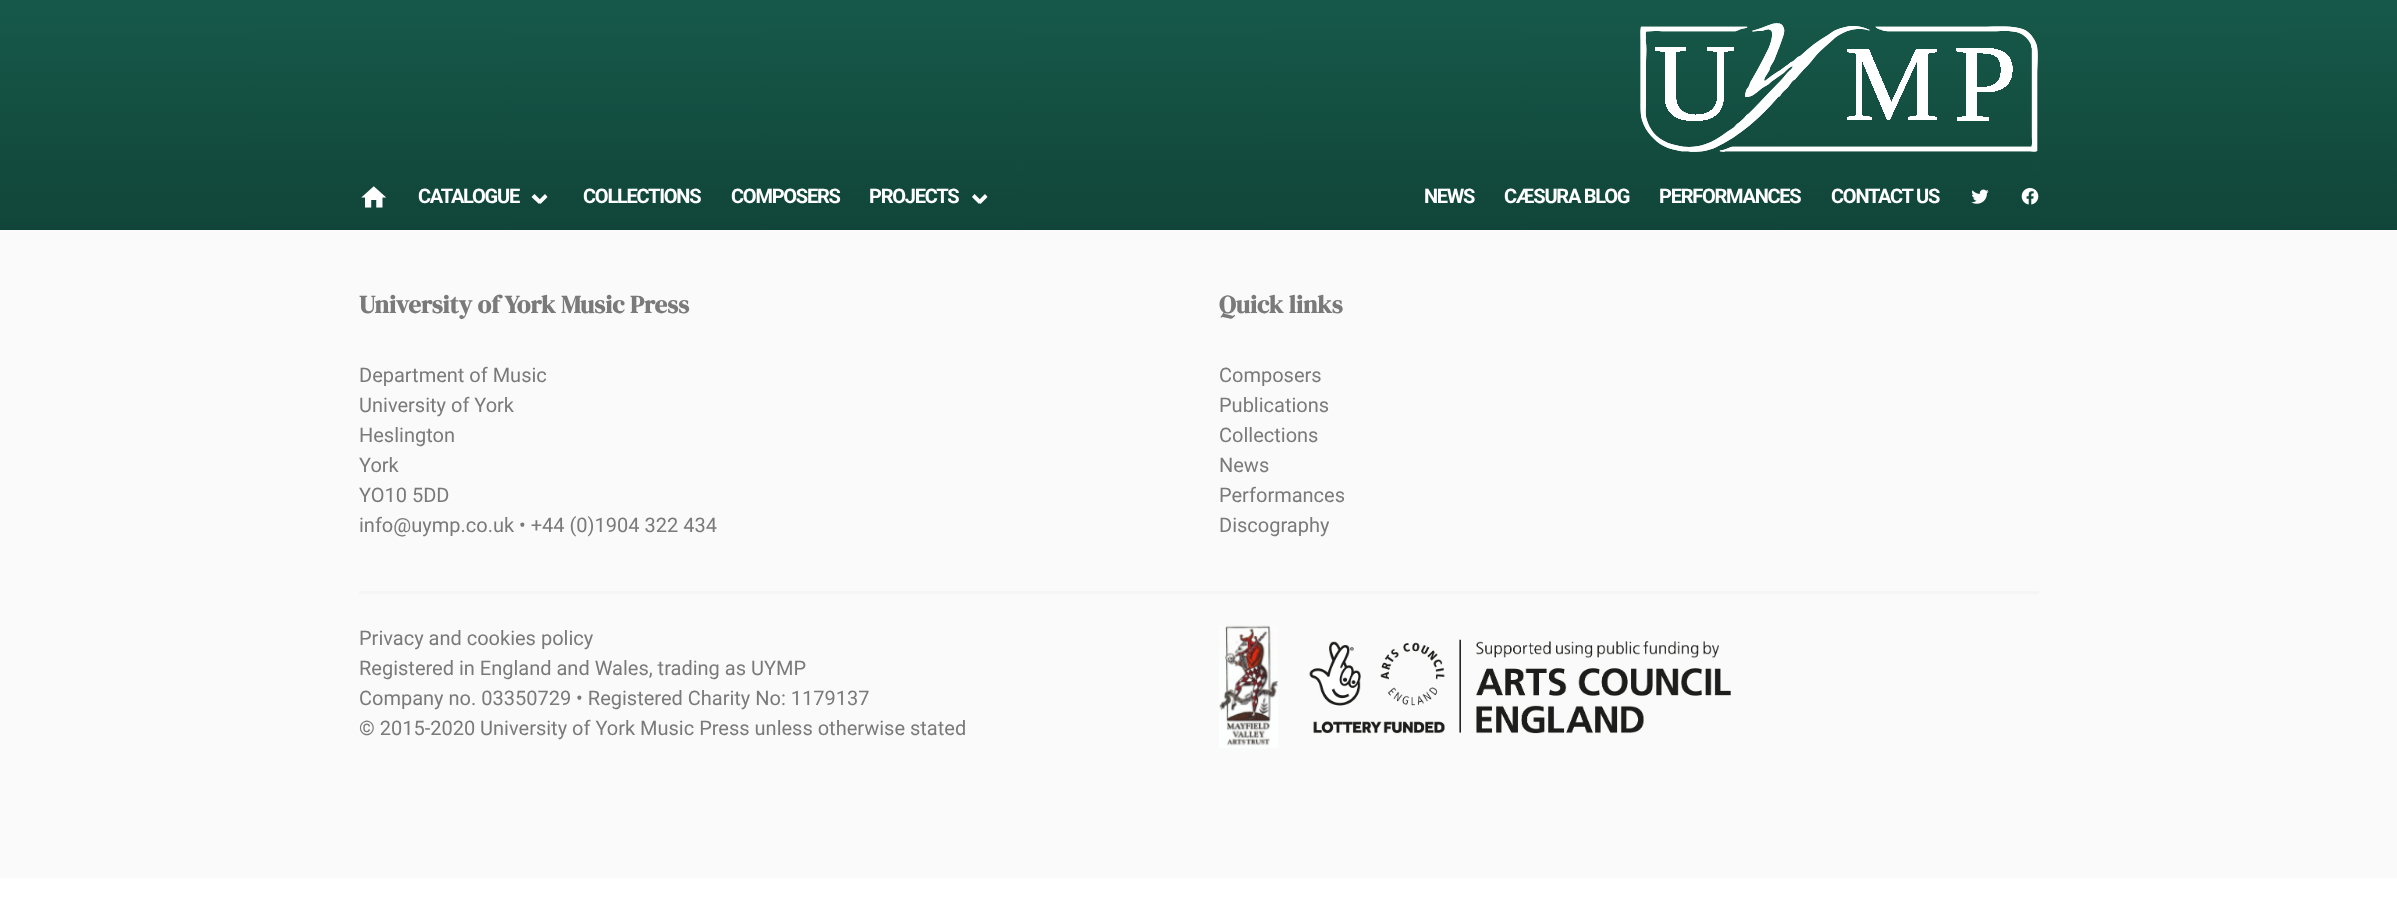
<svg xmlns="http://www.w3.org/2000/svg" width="2397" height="901">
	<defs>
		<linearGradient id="g1" gradientUnits="userSpaceOnUse" x1="1199" y1="0" x2="1199" y2="230"><stop offset="0" stop-color="#16594A" /><stop offset="1" stop-color="#114539" /></linearGradient>
	</defs>
	<rect width="100%" height="100%" fill="#FFFFFF" />
	<rect x="0" y="0" width="2397" height="230" fill="url(#g1)" />
	<image x="1640" y="23" width="398" height="129" href="assets/img1.png" />
	<image x="361" y="186" width="26" height="22" href="assets/img2.png" />
	<text x="418" y="203" font-family="Roboto" font-size="20" font-weight="700" letter-spacing="-1.25" fill="#FFFFFF">CATALOGUE</text>
	<path d="M538 201L545 194L547.5 197L540.5 204Z" fill="#FFFFFF" />
	<path d="M531.5 197L534.5 194L541.5 201L539 204Z" fill="#FFFFFF" />
	<g font-family="Roboto" font-size="20" font-weight="700" letter-spacing="-1.25" fill="#FFFFFF">
		<text x="583" y="203">COLLECTIONS</text>
		<text x="731" y="203">COMPOSERS</text>
		<text x="869" y="203">PROJECTS</text>
	</g>
	<path d="M978 201L985 194L987.5 197L980.5 204Z" fill="#FFFFFF" />
	<path d="M972 197L974.5 194L981.5 201L979 204Z" fill="#FFFFFF" />
	<g font-family="Roboto" font-size="20" font-weight="700" letter-spacing="-1.25" fill="#FFFFFF">
		<text x="1424" y="203">NEWS</text>
		<text x="1504" y="203">CÆSURA BLOG</text>
		<text x="1659" y="203">PERFORMANCES</text>
		<text x="1831" y="203">CONTACT US</text>
	</g>
	<image x="1971" y="189" width="18" height="15" href="assets/img3.png" />
	<image x="2021" y="188" width="18" height="17" href="assets/img4.png" />
	<rect x="0" y="230" width="2397" height="648" fill="#FAFAFA" />
	<text x="359" y="313" font-family="DM Serif Display" font-size="25" font-weight="700" fill="#7A7A7A">University of York Music Press</text>
	<g font-family="Roboto" font-size="20" fill="#7A7A7A">
		<text x="359" y="382">Department of Music</text>
		<text x="359" y="412">University of York</text>
		<text x="359" y="442">Heslington</text>
		<text x="359" y="472">York</text>
		<text x="359" y="502">YO10 5DD</text>
		<text x="359" y="532">info@uymp.co.uk • +44 (0)1904 322 434</text>
	</g>
	<text x="1219" y="313" font-family="DM Serif Display" font-size="25" font-weight="700" fill="#7A7A7A">Quick links</text>
	<g font-family="Roboto" font-size="20" fill="#7A7A7A">
		<text x="1219" y="382">Composers</text>
		<text x="1219" y="412">Publications</text>
		<text x="1219" y="442">Collections</text>
		<text x="1219" y="472">News</text>
		<text x="1219" y="502">Performances</text>
		<text x="1219" y="532">Discography</text>
	</g>
	<rect x="359" y="591" width="1680" height="3" fill="#F5F5F5" />
	<g font-family="Roboto" font-size="20" fill="#7A7A7A">
		<text x="359" y="645">Privacy and cookies policy</text>
		<text x="359" y="675">Registered in England and Wales, trading as UYMP</text>
		<text x="359" y="705">Company no. 03350729 • Registered Charity No: 1179137</text>
		<text x="359" y="735">© 2015-2020 University of York Music Press unless otherwise stated</text>
	</g>
	<image x="1219" y="625" width="59" height="123" href="assets/img5.png" />
	<image x="1309" y="639" width="422" height="95" href="assets/img6.png" />
</svg>
